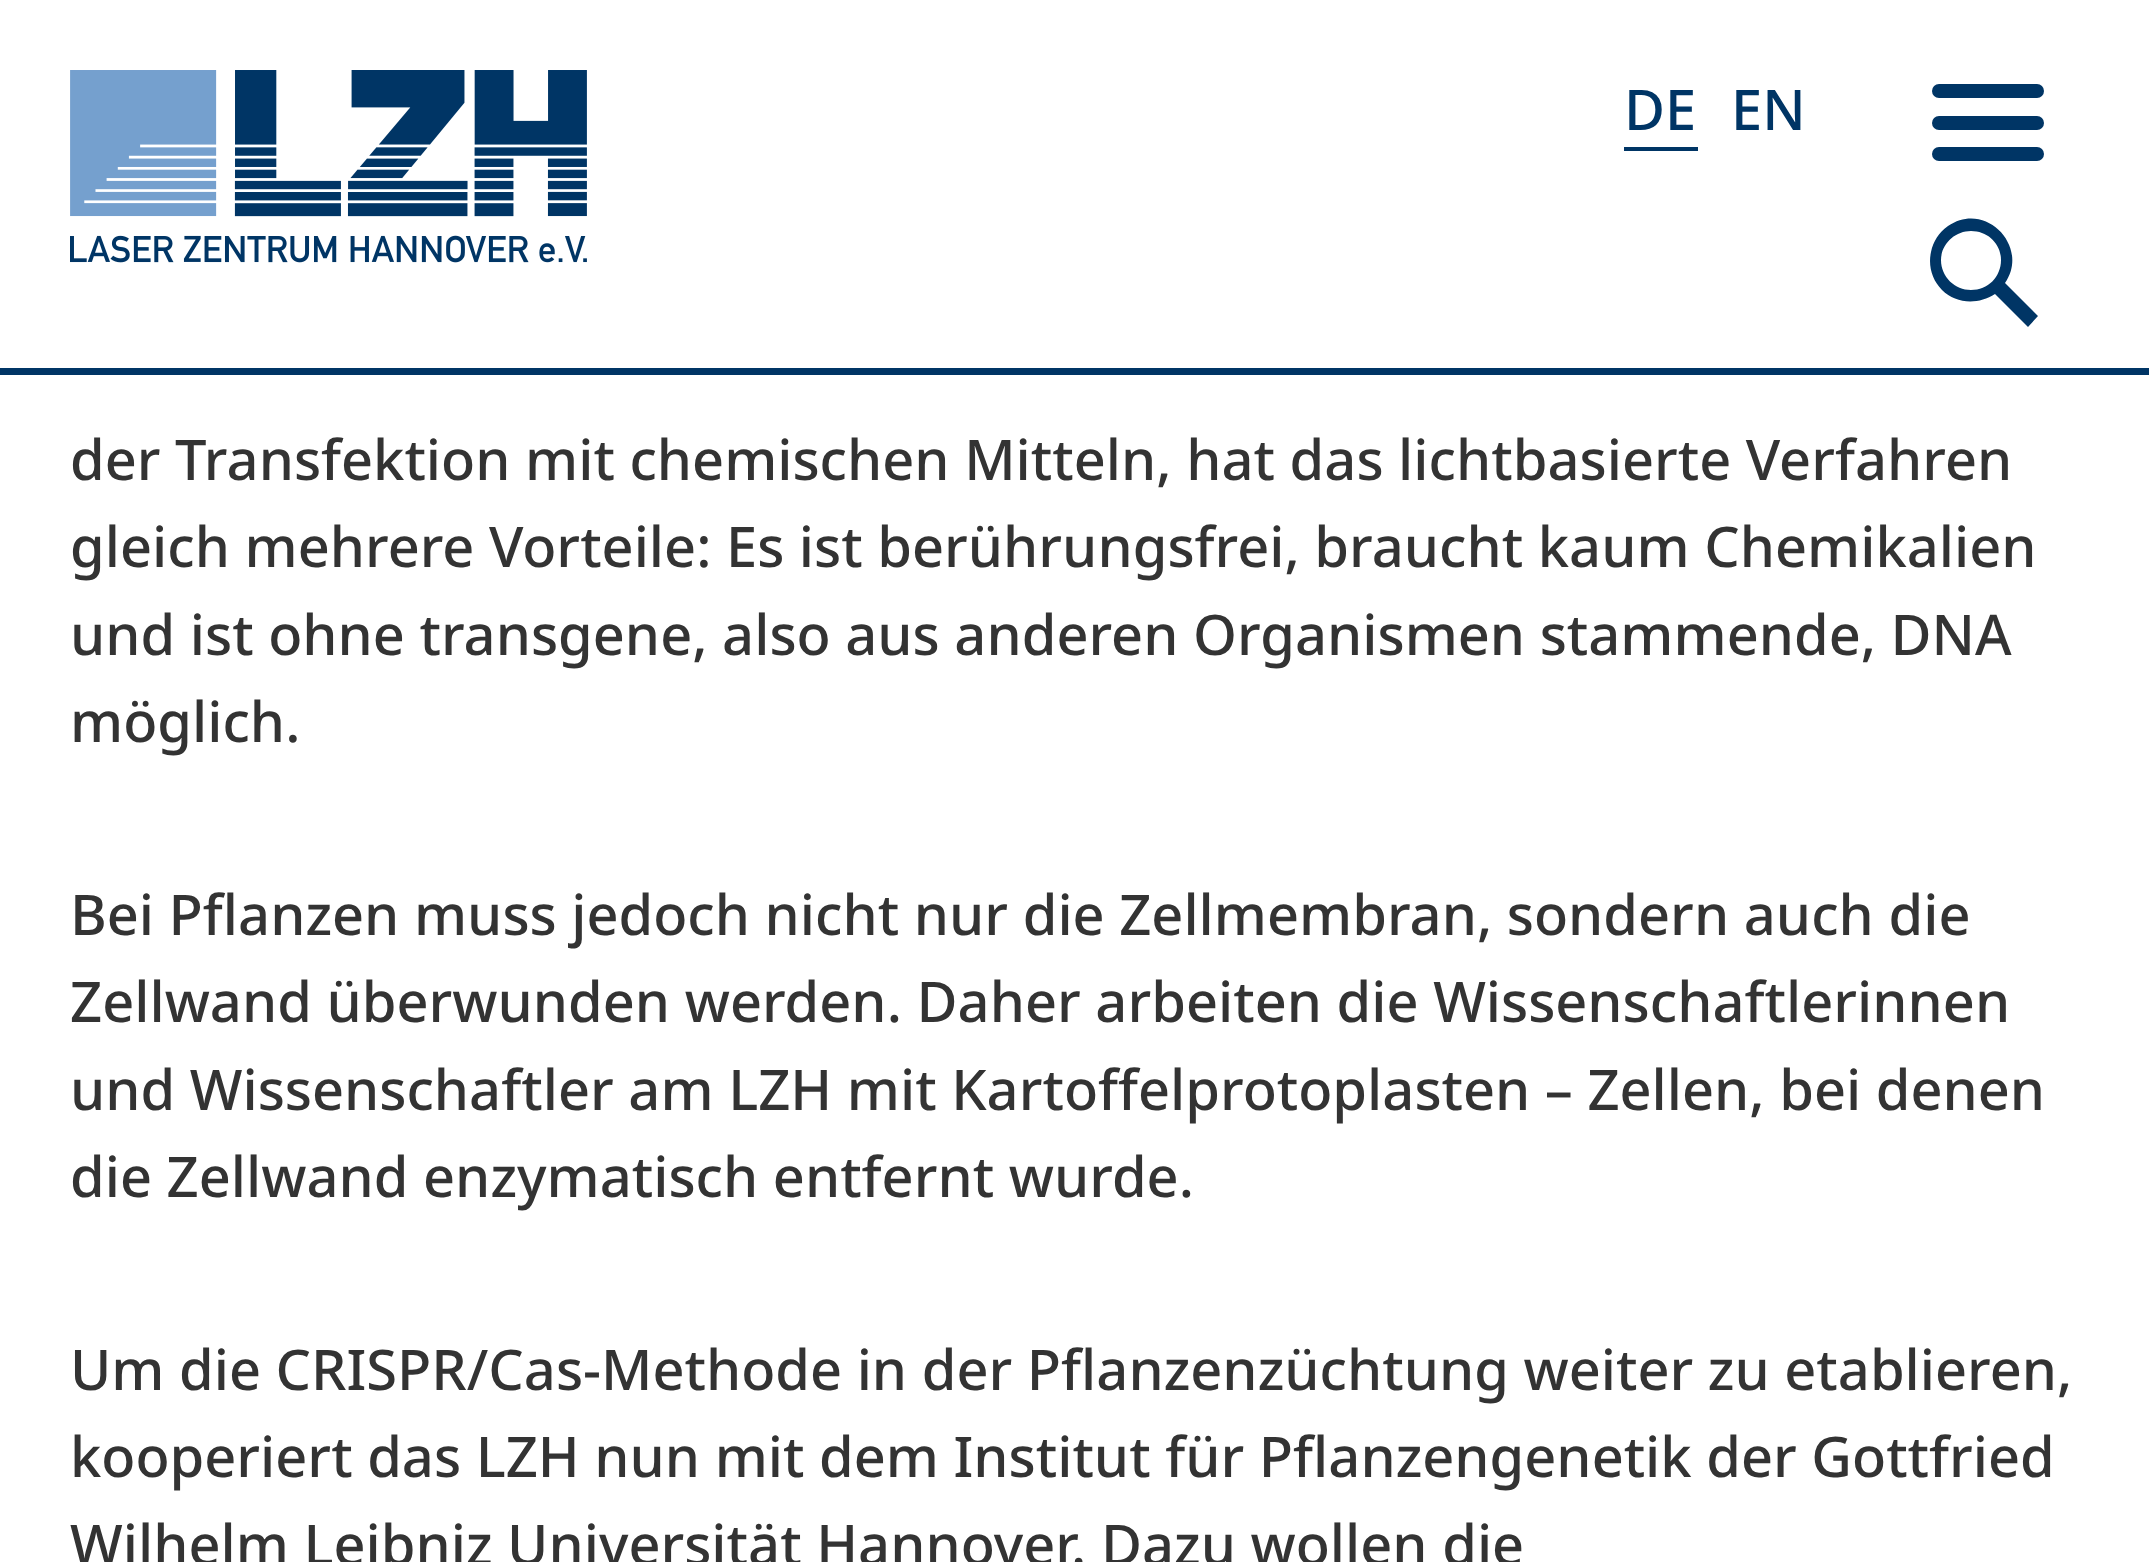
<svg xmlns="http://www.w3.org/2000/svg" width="2149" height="1562">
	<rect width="100%" height="100%" fill="#FFFFFF" />
	<image x="70" y="70" width="517" height="193" href="assets/img1.png" />
	<text x="1624" y="130" font-family="Noto Sans" font-size="56" font-weight="500" fill="#003565">DE</text>
	<rect x="1624" y="147" width="74" height="4" fill="#003565" />
	<text x="1731" y="130" font-family="Noto Sans" font-size="56" font-weight="500" fill="#003565">EN</text>
	<rect x="1932" y="84" width="112" height="14" rx="7" fill="#003565" />
	<rect x="1932" y="116" width="112" height="14" rx="7" fill="#003565" />
	<rect x="1932" y="147" width="112" height="14" rx="7" fill="#003565" />
	<path d="M2005 283C2030 247 1986 200 1948 226C1939 232 1933 242 1931 252C1928 266 1932 280 1942 290C1956 304 1978 305 1995 294L2028 327L2038 316ZM1971 290C1955 290 1941 277 1941 260C1941 244 1955 231 1971 231C1988 231 2001 244 2001 260C2001 277 1988 290 1971 290Z" fill="#003565" />
	<rect x="0" y="368" width="2149" height="7" fill="#003565" />
	<g font-family="Noto Sans" font-size="56" font-weight="500" fill="#333333">
		<text x="70" y="480">der Transfektion mit chemischen Mitteln, hat das lichtbasierte Verfahren</text>
		<text x="70" y="567">gleich mehrere Vorteile: Es ist berührungsfrei, braucht kaum Chemikalien</text>
		<text x="70" y="655">und ist ohne transgene, also aus anderen Organismen stammende, DNA</text>
		<text x="70" y="742">möglich.</text>
		<text x="70" y="935">Bei Pflanzen muss jedoch nicht nur die Zellmembran, sondern auch die</text>
		<text x="70" y="1022">Zellwand überwunden werden. Daher arbeiten die Wissenschaftlerinnen</text>
		<text x="70" y="1110">und Wissenschaftler am LZH mit Kartoffelprotoplasten – Zellen, bei denen</text>
		<text x="70" y="1197">die Zellwand enzymatisch entfernt wurde.</text>
		<text x="70" y="1390">Um die CRISPR/Cas-Methode in der Pflanzenzüchtung weiter zu etablieren,</text>
		<text x="70" y="1477">kooperiert das LZH nun mit dem Institut für Pflanzengenetik der Gottfried</text>
		<text x="70" y="1565">Wilhelm Leibniz Universität Hannover. Dazu wollen die</text>
	</g>
</svg>
